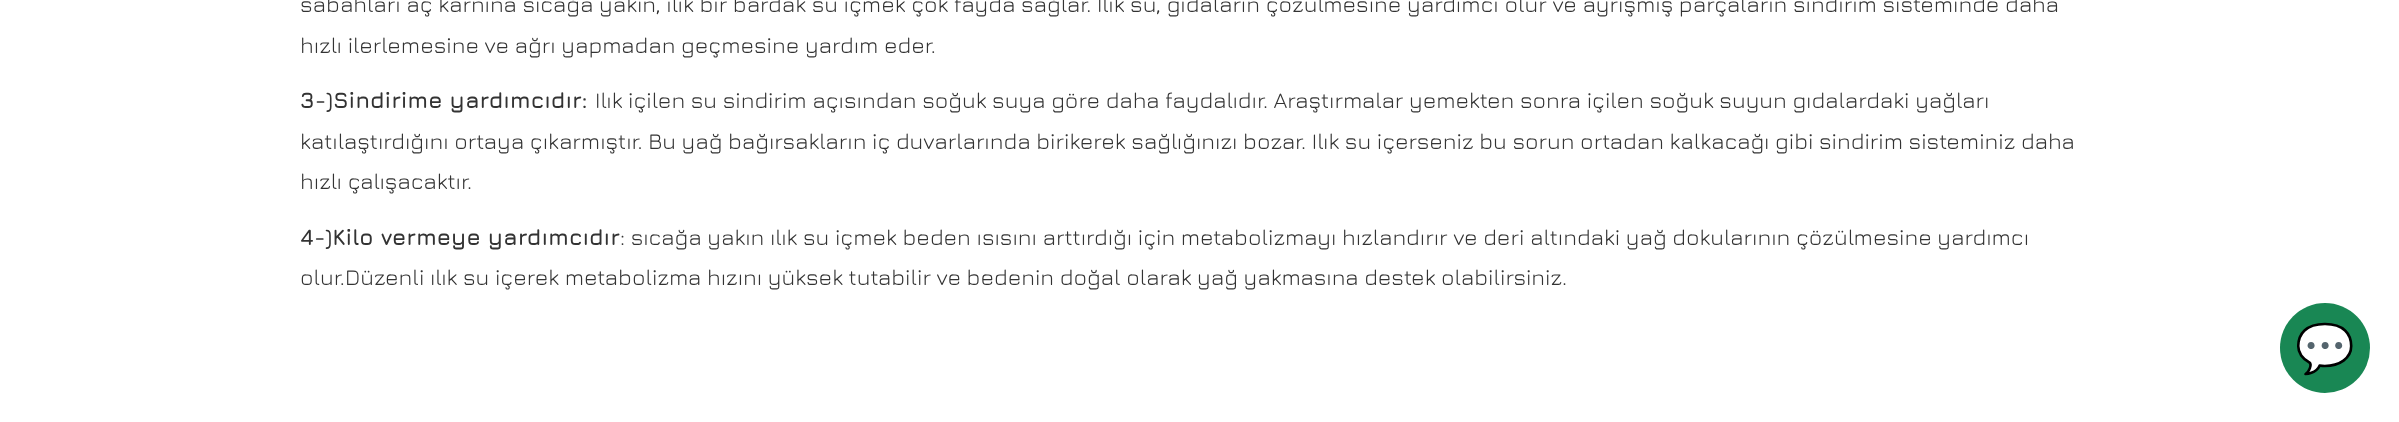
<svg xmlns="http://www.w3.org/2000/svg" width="2399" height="422">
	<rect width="100%" height="100%" fill="#FFFFFF" />
	<g font-family="Jura" font-size="22.5" fill="#333333">
		<text x="300" y="12">sabahları aç karnına sıcağa yakın, ılık bir bardak su içmek çok fayda sağlar. Ilık su, gıdaların çözülmesine yardımcı olur ve ayrışmış parçaların sindirim sisteminde daha</text>
		<text x="300" y="53">hızlı ilerlemesine ve ağrı yapmadan geçmesine yardım eder.</text>
	</g>
	<text x="300" y="108" font-family="Jura" font-size="22.5" font-weight="700" fill="#333333">3-)Sindirime yardımcıdır:</text>
	<g font-family="Jura" font-size="22.5" fill="#333333">
		<text x="595" y="108">Ilık içilen su sindirim açısından soğuk suya göre daha faydalıdır. Araştırmalar yemekten sonra içilen soğuk suyun gıdalardaki yağları</text>
		<text x="300" y="149">katılaştırdığını ortaya çıkarmıştır. Bu yağ bağırsakların iç duvarlarında birikerek sağlığınızı bozar. Ilık su içerseniz bu sorun ortadan kalkacağı gibi sindirim sisteminiz daha</text>
		<text x="300" y="189">hızlı çalışacaktır.</text>
	</g>
	<text x="300" y="245" font-family="Jura" font-size="22.5" font-weight="700" fill="#333333">4-)Kilo vermeye yardımcıdır</text>
	<g font-family="Jura" font-size="22.5" fill="#333333">
		<text x="620" y="245">: sıcağa yakın ılık su içmek beden ısısını arttırdığı için metabolizmayı hızlandırır ve deri altındaki yağ dokularının çözülmesine yardımcı</text>
		<text x="300" y="285">olur.Düzenli ılık su içerek metabolizma hızını yüksek tutabilir ve bedenin doğal olarak yağ yakmasına destek olabilirsiniz.</text>
	</g>
	<circle cx="2325" cy="348" r="45" fill="#198754" />
	<text x="2295" y="365" font-family="Noto Color Emoji" font-size="48" fill="#FFFFFF">💬</text>
</svg>
